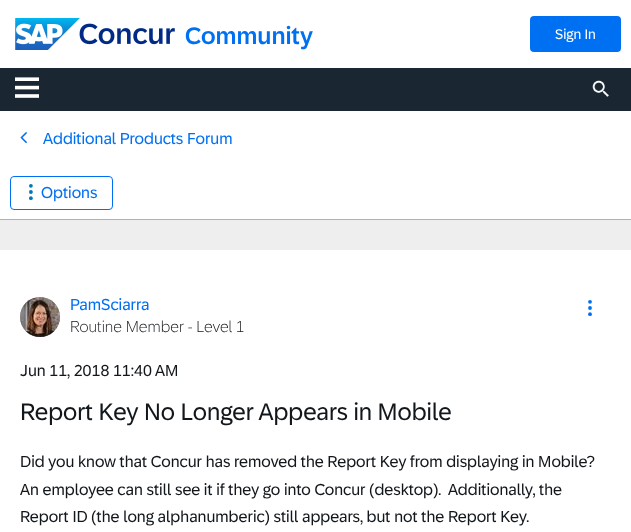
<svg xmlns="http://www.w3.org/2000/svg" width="631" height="532">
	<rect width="100%" height="100%" fill="#EEEEEE" />
	<rect x="0" y="0" width="631" height="68" fill="#FFFFFF" />
	<image x="15" y="18" width="160" height="32" href="assets/img1.png" />
	<text x="185" y="44" font-family="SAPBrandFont" font-size="24" font-weight="500" fill="#0070F2">Community</text>
	<rect x="530" y="16" width="91" height="36" rx="4" fill="#0070F2" />
	<text x="555" y="39" font-family="SAPBrandFont" font-size="14" fill="#FFFFFF">Sign In</text>
	<rect x="0" y="68" width="631" height="43" fill="#1A2733" />
	<image x="15" y="77" width="24" height="21" href="assets/img2.png" />
	<image x="592" y="80" width="18" height="17" href="assets/img3.png" />
	<rect x="0" y="111" width="631" height="108" fill="#FFFFFF" />
	<rect x="0" y="219" width="631" height="1" fill="#A9B4BE" />
	<image x="20" y="132" width="7" height="12" href="assets/img4.png" />
	<text x="43" y="144" font-family="SAPBrandFont" font-size="16" fill="#0070F2">Additional Products Forum</text>
	<rect x="10.5" y="176.5" width="102" height="33" rx="3.5" fill="none" stroke="#0070F2" />
	<circle cx="30.9" cy="185.8" r="1.9" fill="#0078B6" />
	<circle cx="30.9" cy="192" r="1.9" fill="#0078B6" />
	<circle cx="30.9" cy="198.2" r="1.9" fill="#0078B6" />
	<text x="41" y="198" font-family="SAPBrandFont" font-size="16" fill="#0070F2">Options</text>
	<rect x="0" y="250" width="631" height="282" fill="#FFFFFF" />
	<rect x="20" y="297" width="40" height="40" rx="20" fill="#A9B4BE" filter="blur(0.5px)" />
	<image x="20" y="297" width="40" height="40" href="assets/img5.png" />
	<text x="70" y="310" font-family="SAPBrandFont" font-size="16" fill="#0070F2">PamSciarra</text>
	<text x="70" y="332" font-family="SAPBrandFont" font-size="16" font-weight="300" fill="#12171C">Routine Member - Level 1</text>
	<circle cx="590" cy="301.8" r="1.9" fill="#0070F2" />
	<circle cx="590" cy="308" r="1.9" fill="#0070F2" />
	<circle cx="590" cy="314.2" r="1.9" fill="#0070F2" />
	<text x="20" y="376" font-family="SAPBrandFont" font-size="16" fill="#12171C">Jun 11, 2018 11:40 AM</text>
	<text x="20" y="420" font-family="SAPBrandFont" font-size="24" fill="#12171C">Report Key No Longer Appears in Mobile</text>
	<g font-family="SAPBrandFont" font-size="16" fill="#12171C">
		<text x="20" y="467">Did you know that Concur has removed the Report Key from displaying in Mobile?</text>
		<text x="20" y="495" xml:space="preserve">An employee can still see it if they go into Concur (desktop).  Additionally, the</text>
		<text x="20" y="522">Report ID (the long alphanumberic) still appears, but not the Report Key.</text>
	</g>
</svg>
